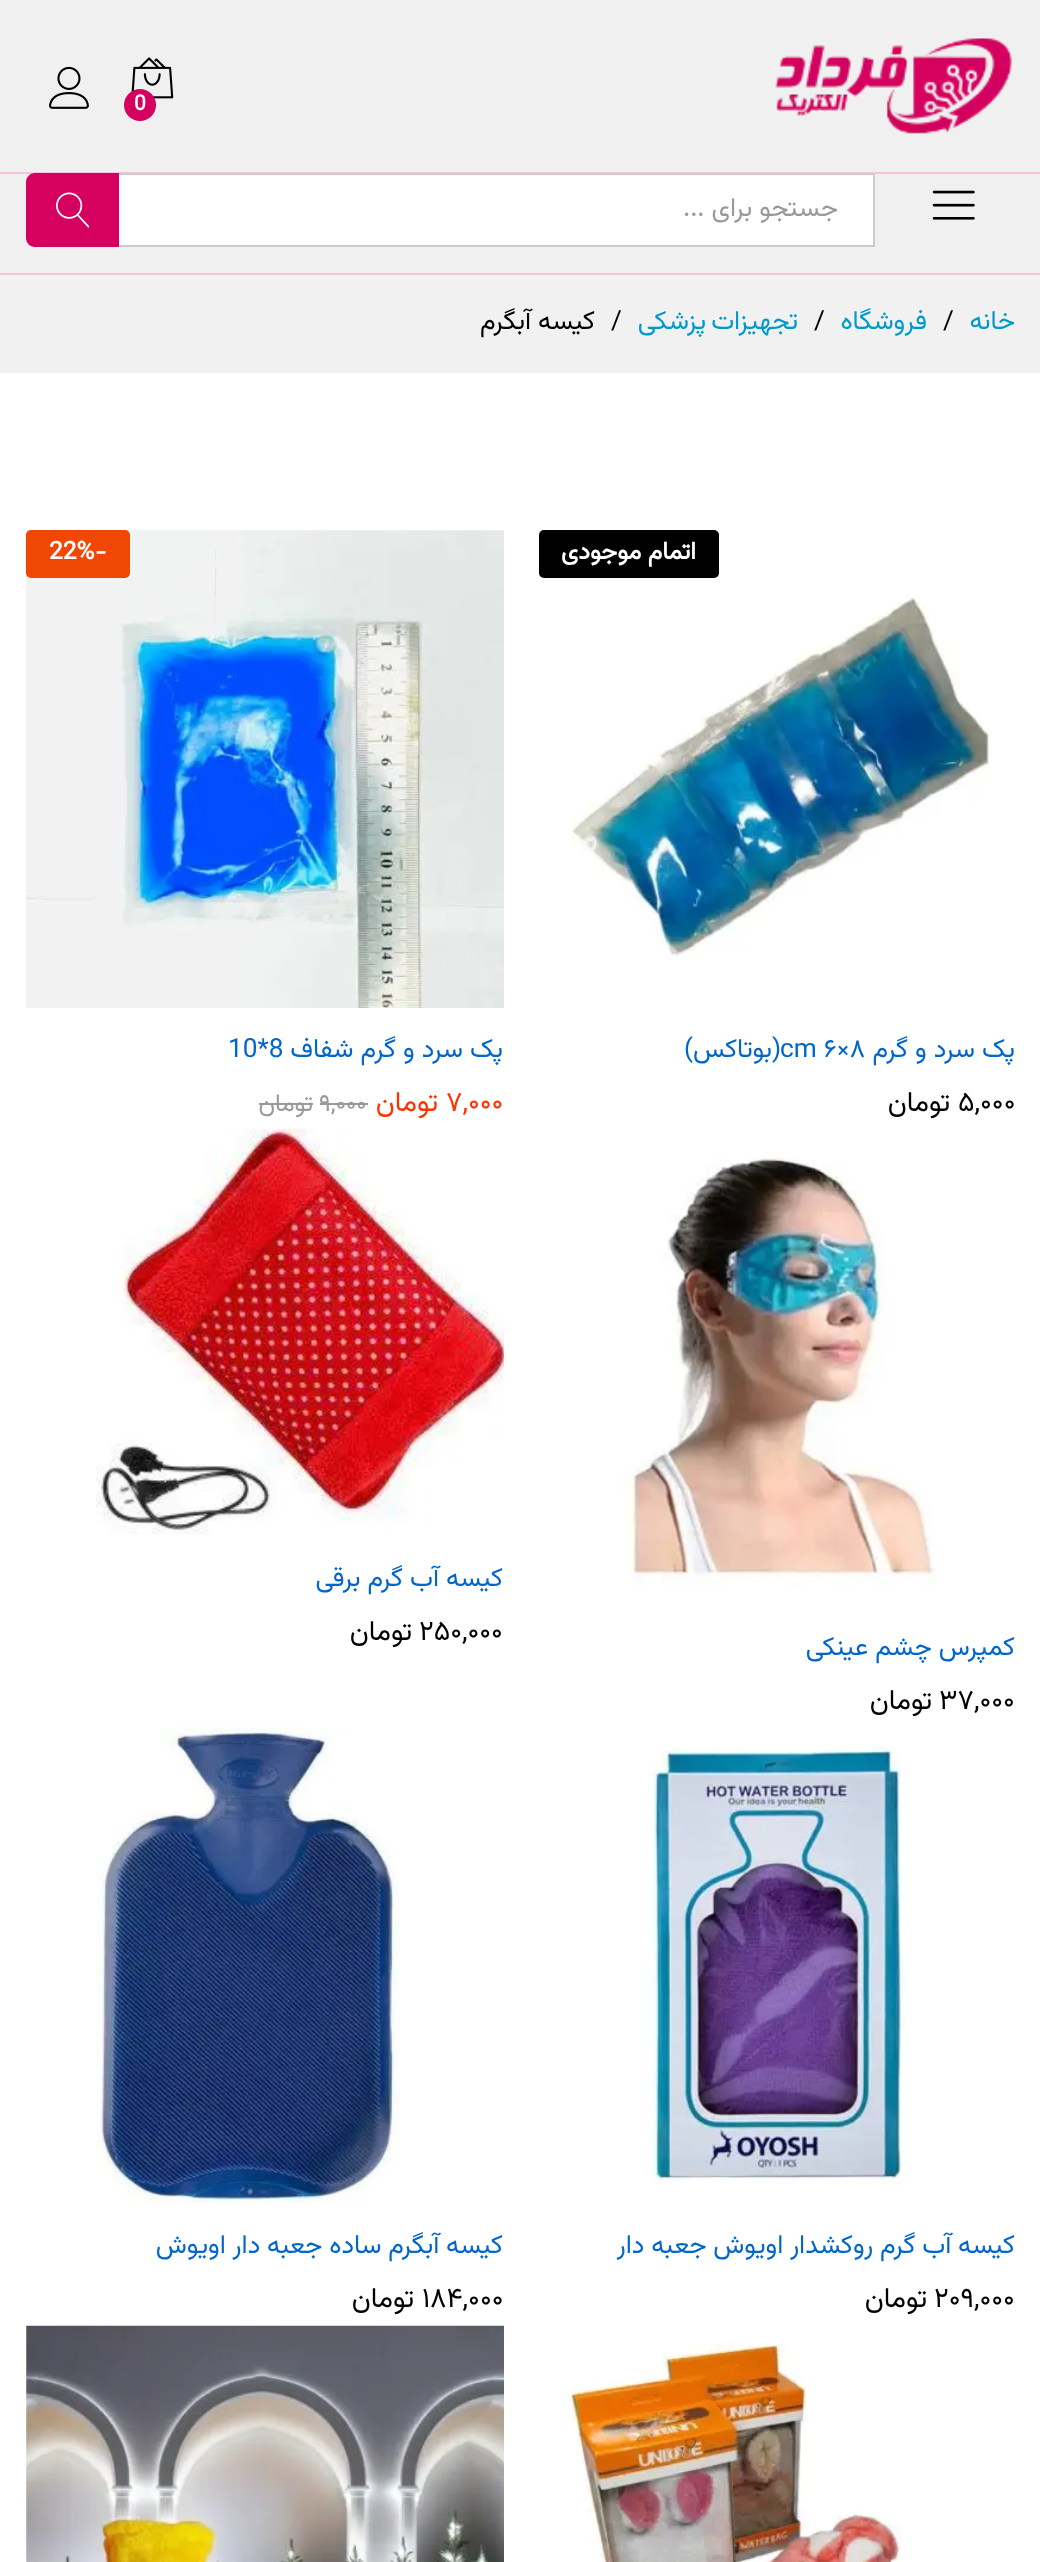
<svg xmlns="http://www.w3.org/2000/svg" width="1040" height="2562">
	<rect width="100%" height="100%" fill="#FFFFFF" />
	<rect x="0" y="0" width="1040" height="273" fill="#F0F0F1" />
	<rect x="0" y="273" width="1040" height="2" fill="#F6C4DA" />
	<rect x="0" y="172" width="1040" height="2" fill="#F6C4DA" />
	<image x="775" y="38" width="237" height="96" href="assets/img1.png" />
	<image x="131" y="57" width="43" height="42" href="assets/img2.png" />
	<circle cx="140" cy="105" r="16" fill="#D60060" />
	<text x="134" y="110" font-family="Vazirmatn" font-size="21" font-weight="700" fill="#FFFFFF">0</text>
	<image x="49" y="66" width="40" height="43" href="assets/img3.png" />
	<image x="932" y="190" width="43" height="30" href="assets/img4.png" />
	<rect x="119" y="175" width="754" height="70" fill="#FFFFFF" />
	<rect x="119" y="173" width="756" height="2" fill="#CCCCCC" />
	<rect x="873" y="173" width="2" height="74" fill="#CCCCCC" />
	<rect x="119" y="245" width="756" height="2" fill="#CCCCCC" />
	<text x="838" y="216" font-family="Vazirmatn" font-size="26.25" direction="rtl" fill="#999999">جستجو برای ...</text>
	<path d="M35 173H119V247H35C30 247 26 243 26 238V182C26 177 30 173 35 173Z" fill="#D60060" />
	<image x="56" y="192" width="34" height="36" href="assets/img5.png" />
	<rect x="0" y="275" width="1040" height="98" fill="#F1F1F1" />
	<text x="1015" y="329" font-family="Vazirmatn" font-size="26.25" direction="rtl" fill="#0099CC">خانه</text>
	<text x="943" y="329" font-family="Vazirmatn" font-size="26.25" fill="#000000">/</text>
	<text x="927" y="329" font-family="Vazirmatn" font-size="26.25" direction="rtl" fill="#0099CC">فروشگاه</text>
	<text x="814" y="329" font-family="Vazirmatn" font-size="26.25" fill="#000000">/</text>
	<text x="798" y="329" word-spacing="-2" font-family="Vazirmatn" font-size="26.25" direction="rtl" fill="#0099CC">تجهیزات پزشکی</text>
	<text x="611" y="329" font-family="Vazirmatn" font-size="26.25" fill="#000000">/</text>
	<text x="595" y="329" font-family="Vazirmatn" font-size="26.25" direction="rtl" fill="#000000">کیسه آبگرم</text>
	<rect x="539" y="530" width="180" height="48" rx="5" fill="#000000" />
	<text x="696" y="559" font-family="Vazirmatn" font-size="24.5" font-weight="700" direction="rtl" fill="#FFFFFF">اتمام موجودی</text>
	<image x="568" y="597" width="424" height="359" href="assets/img6.png" />
	<text x="1015" y="1057" font-family="Vazirmatn" font-size="26.25" direction="rtl" fill="#0066CC">پک سرد و گرم</text>
	<text x="780" y="1057" font-family="Vazirmatn" font-size="26.25" fill="#0066CC">cm ۶×۸</text>
	<text x="781" y="1057" font-family="Vazirmatn" font-size="26.25" direction="rtl" fill="#0066CC">(بوتاکس)</text>
	<text x="958" y="1111" font-family="Vazirmatn" font-size="28" fill="#000000">۵,۰۰۰</text>
	<text x="950" y="1111" font-family="Vazirmatn" font-size="28" direction="rtl" fill="#000000">تومان</text>
	<image x="26" y="530" width="478" height="478" href="assets/img7.png" />
	<rect x="26" y="530" width="104" height="48" rx="5" fill="#F14705" />
	<g font-family="Vazirmatn" font-size="24.5" font-weight="700" fill="#FFFFFF">
		<text x="95" y="559">-</text>
		<text x="49" y="559">22%</text>
	</g>
	<text x="503" y="1057" font-family="Vazirmatn" font-size="26.25" direction="rtl" fill="#0066CC">پک سرد و گرم شفاف</text>
	<text x="228" y="1057" font-family="Vazirmatn" font-size="26.25" fill="#0066CC">10*8</text>
	<text x="446" y="1111" font-family="Vazirmatn" font-size="28" fill="#FF3300">۷,۰۰۰</text>
	<text x="438" y="1111" font-family="Vazirmatn" font-size="28" direction="rtl" fill="#FF3300">تومان</text>
	<text x="319" y="1111" font-family="Vazirmatn" font-size="24.5" fill="#999999">۹,۰۰۰</text>
	<rect x="320" y="1103" width="48" height="2" fill="#999999" />
	<text x="313" y="1111" font-family="Vazirmatn" font-size="24.5" direction="rtl" fill="#999999">تومان</text>
	<rect x="259" y="1103" width="54" height="2" fill="#999999" />
	<image x="96" y="1128" width="408" height="407" href="assets/img8.png" />
	<text x="503" y="1586" font-family="Vazirmatn" font-size="26.25" direction="rtl" fill="#0066CC">کیسه آب گرم برقی</text>
	<text x="419" y="1640" font-family="Vazirmatn" font-size="28" fill="#000000">۲۵۰,۰۰۰</text>
	<text x="412" y="1640" font-family="Vazirmatn" font-size="28" direction="rtl" fill="#000000">تومان</text>
	<image x="615" y="1157" width="321" height="431" href="assets/img9.png" />
	<text x="1015" y="1655" font-family="Vazirmatn" font-size="26.25" direction="rtl" fill="#0066CC">کمپرس چشم عینکی</text>
	<text x="939" y="1709" font-family="Vazirmatn" font-size="28" fill="#000000">۳۷,۰۰۰</text>
	<text x="932" y="1709" font-family="Vazirmatn" font-size="28" direction="rtl" fill="#000000">تومان</text>
	<image x="653" y="1745" width="253" height="440" href="assets/img10.png" />
	<text x="1015" y="2253" word-spacing="-0.25" font-family="Vazirmatn" font-size="26.25" direction="rtl" fill="#0066CC">کیسه آب گرم روکشدار اویوش جعبه دار</text>
	<text x="934" y="2307" font-family="Vazirmatn" font-size="28" fill="#000000">۲۰۹,۰۰۰</text>
	<text x="927" y="2307" font-family="Vazirmatn" font-size="28" direction="rtl" fill="#000000">تومان</text>
	<image x="96" y="1727" width="304" height="477" href="assets/img11.png" />
	<text x="503" y="2253" word-spacing="-0.25" font-family="Vazirmatn" font-size="26.25" direction="rtl" fill="#0066CC">کیسه آبگرم ساده جعبه دار اویوش</text>
	<text x="422" y="2307" font-family="Vazirmatn" font-size="28" fill="#000000">۱۸۴,۰۰۰</text>
	<text x="414" y="2307" font-family="Vazirmatn" font-size="28" direction="rtl" fill="#000000">تومان</text>
	<image x="567" y="2344" width="336" height="218" href="assets/img12.png" />
	<image x="26" y="2325" width="478" height="237" href="assets/img13.png" />
</svg>
